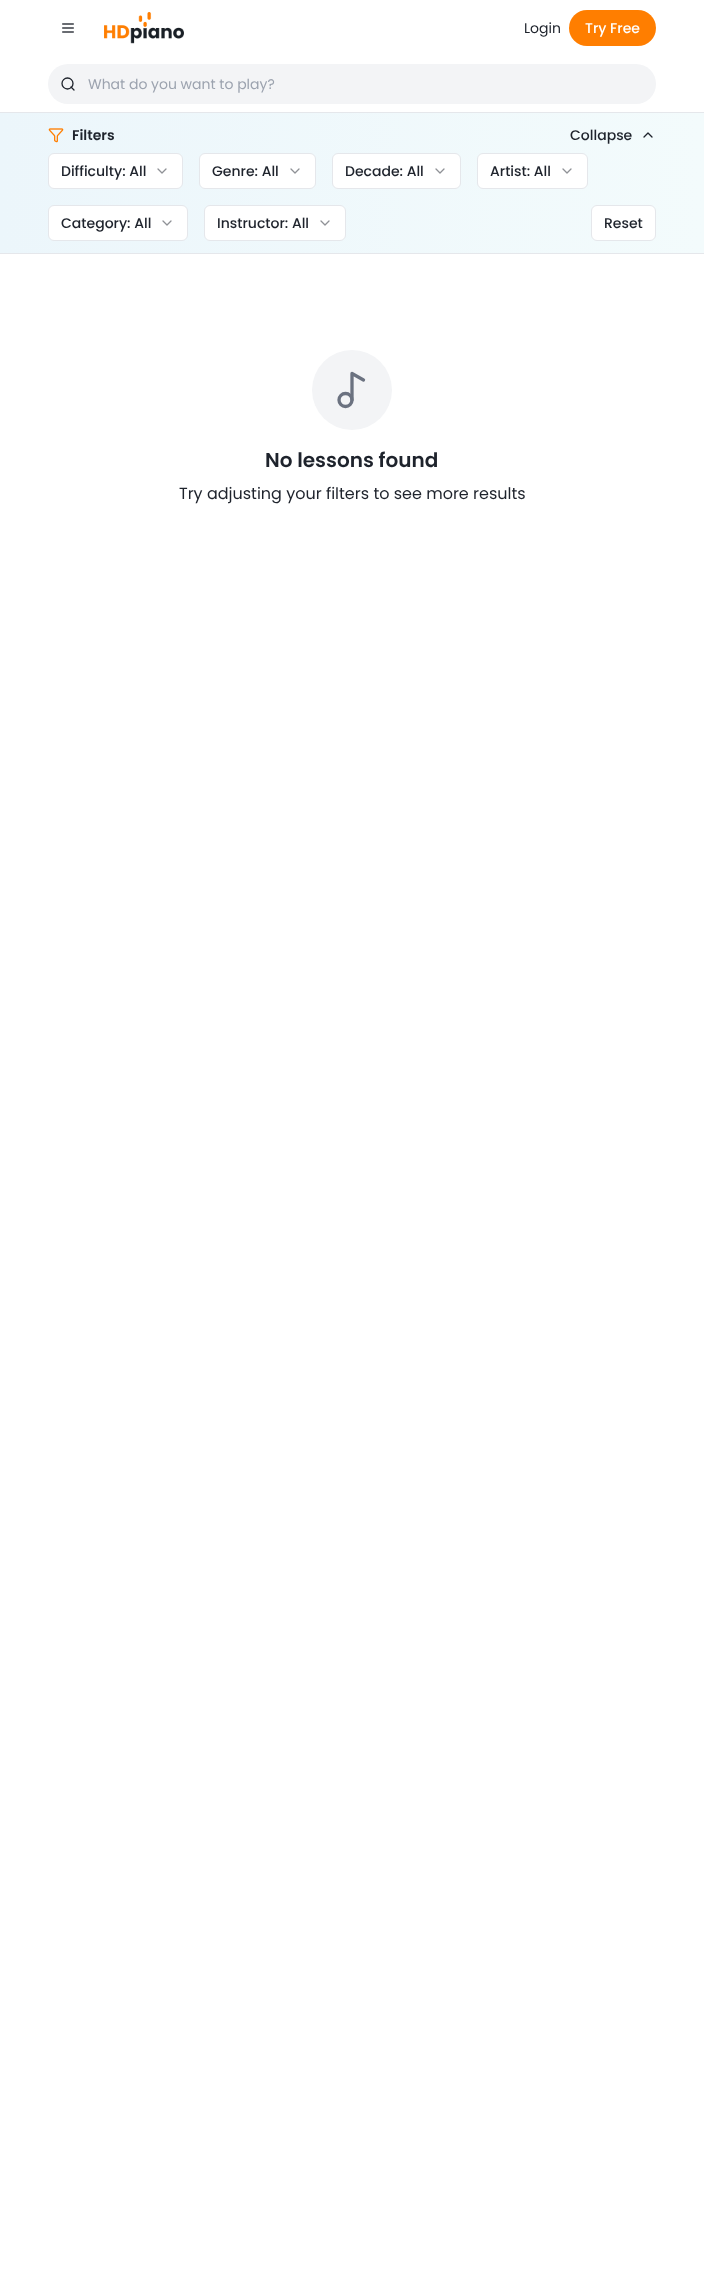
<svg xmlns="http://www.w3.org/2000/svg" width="704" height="2271">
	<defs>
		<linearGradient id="g1" gradientUnits="userSpaceOnUse" x1="0" y1="183" x2="704" y2="183"><stop offset="0" stop-color="#ECF6FB" /><stop offset="1" stop-color="#F3FBFC" /></linearGradient>
	</defs>
	<rect width="100%" height="100%" fill="#FFFFFF" />
	<rect x="0" y="112" width="704" height="1" fill="#E5E7EB" />
	<image x="62" y="23" width="12" height="10" href="assets/img1.png" />
	<image x="104" y="12" width="80" height="32" href="assets/img2.png" />
	<text x="524" y="33" font-family="Poppins" font-size="14" fill="#1E232C">Login</text>
	<rect x="569" y="10" width="87" height="36" rx="18" fill="#FF7E00" />
	<text x="585" y="33" font-family="Poppins" font-size="14" font-weight="500" fill="#FFFFFF">Try Free</text>
	<rect x="48" y="64" width="608" height="40" rx="20" fill="#F3F4F6" />
	<circle cx="67.5" cy="83.5" r="5.5" fill="none" stroke="#1E232C" stroke-width="1.3" />
	<path d="M74 90L71 87" fill="none" stroke="#1E232C" stroke-width="1.3" stroke-linecap="round" stroke-linejoin="round" />
	<text x="88" y="89" font-family="Poppins" font-size="14" fill="#9CA3AF">What do you want to play?</text>
	<rect x="0" y="113" width="704" height="140" fill="url(#g1)" />
	<rect x="0" y="253" width="704" height="1" fill="#E5E7EB" />
	<image x="48" y="128" width="16" height="15" href="assets/img3.png" />
	<text x="72" y="140" font-family="Poppins" font-size="14" font-weight="600" fill="#1E232C">Filters</text>
	<text x="570" y="140" font-family="Poppins" font-size="14" font-weight="500" fill="#1E232C">Collapse</text>
	<path d="M652 137L648 133L644 137" fill="none" stroke="#1E232C" stroke-width="1.3" stroke-linecap="round" stroke-linejoin="round" />
	<rect x="48.5" y="153.5" width="134" height="35" rx="5.5" fill="#FFFFFF" stroke="#E5E7EB" />
	<text x="61" y="176" font-family="Poppins" font-size="14" font-weight="500" fill="#1E232C">Difficulty: All</text>
	<path d="M158 169L162 173L166 169" fill="none" stroke="#8F9196" stroke-width="1.3" stroke-linecap="round" stroke-linejoin="round" />
	<rect x="199.5" y="153.5" width="116" height="35" rx="5.5" fill="#FFFFFF" stroke="#E5E7EB" />
	<text x="212" y="176" font-family="Poppins" font-size="14" font-weight="500" fill="#1E232C">Genre: All</text>
	<path d="M291 169L295 173L299 169" fill="none" stroke="#8F9196" stroke-width="1.3" stroke-linecap="round" stroke-linejoin="round" />
	<rect x="332.5" y="153.5" width="128" height="35" rx="5.5" fill="#FFFFFF" stroke="#E5E7EB" />
	<text x="345" y="176" font-family="Poppins" font-size="14" font-weight="500" fill="#1E232C">Decade: All</text>
	<path d="M436 169L440 173L444 169" fill="none" stroke="#8F9196" stroke-width="1.3" stroke-linecap="round" stroke-linejoin="round" />
	<rect x="477.5" y="153.5" width="110" height="35" rx="5.5" fill="#FFFFFF" stroke="#E5E7EB" />
	<text x="490" y="176" font-family="Poppins" font-size="14" font-weight="500" fill="#1E232C">Artist: All</text>
	<path d="M563 169L567 173L571 169" fill="none" stroke="#8F9196" stroke-width="1.3" stroke-linecap="round" stroke-linejoin="round" />
	<rect x="48.5" y="205.5" width="139" height="35" rx="5.5" fill="#FFFFFF" stroke="#E5E7EB" />
	<text x="61" y="228" font-family="Poppins" font-size="14" font-weight="500" fill="#1E232C">Category: All</text>
	<path d="M163 221L167 225L171 221" fill="none" stroke="#8F9196" stroke-width="1.3" stroke-linecap="round" stroke-linejoin="round" />
	<rect x="204.5" y="205.5" width="141" height="35" rx="5.5" fill="#FFFFFF" stroke="#E5E7EB" />
	<text x="217" y="228" font-family="Poppins" font-size="14" font-weight="500" fill="#1E232C">Instructor: All</text>
	<path d="M321 221L325 225L329 221" fill="none" stroke="#8F9196" stroke-width="1.3" stroke-linecap="round" stroke-linejoin="round" />
	<rect x="591.5" y="205.5" width="64" height="35" rx="5.5" fill="#FFFFFF" stroke="#E5E7EB" />
	<text x="604" y="228" font-family="Poppins" font-size="14" font-weight="500" fill="#1E232C">Reset</text>
	<circle cx="352" cy="390" r="40" fill="#F3F4F6" />
	<circle cx="345.5" cy="400" r="6.5" fill="none" stroke="#6B7280" stroke-width="3.3" />
	<path d="M352 400V373.5L363.5 380" fill="none" stroke="#6B7280" stroke-width="3.3" stroke-linecap="round" stroke-linejoin="round" />
	<text x="265" y="467" font-family="Poppins" font-size="20" font-weight="600" fill="#1E232C">No lessons found</text>
	<text x="179" y="499" font-family="Poppins" font-size="16" fill="#1E232C">Try adjusting your filters to see more results</text>
</svg>
